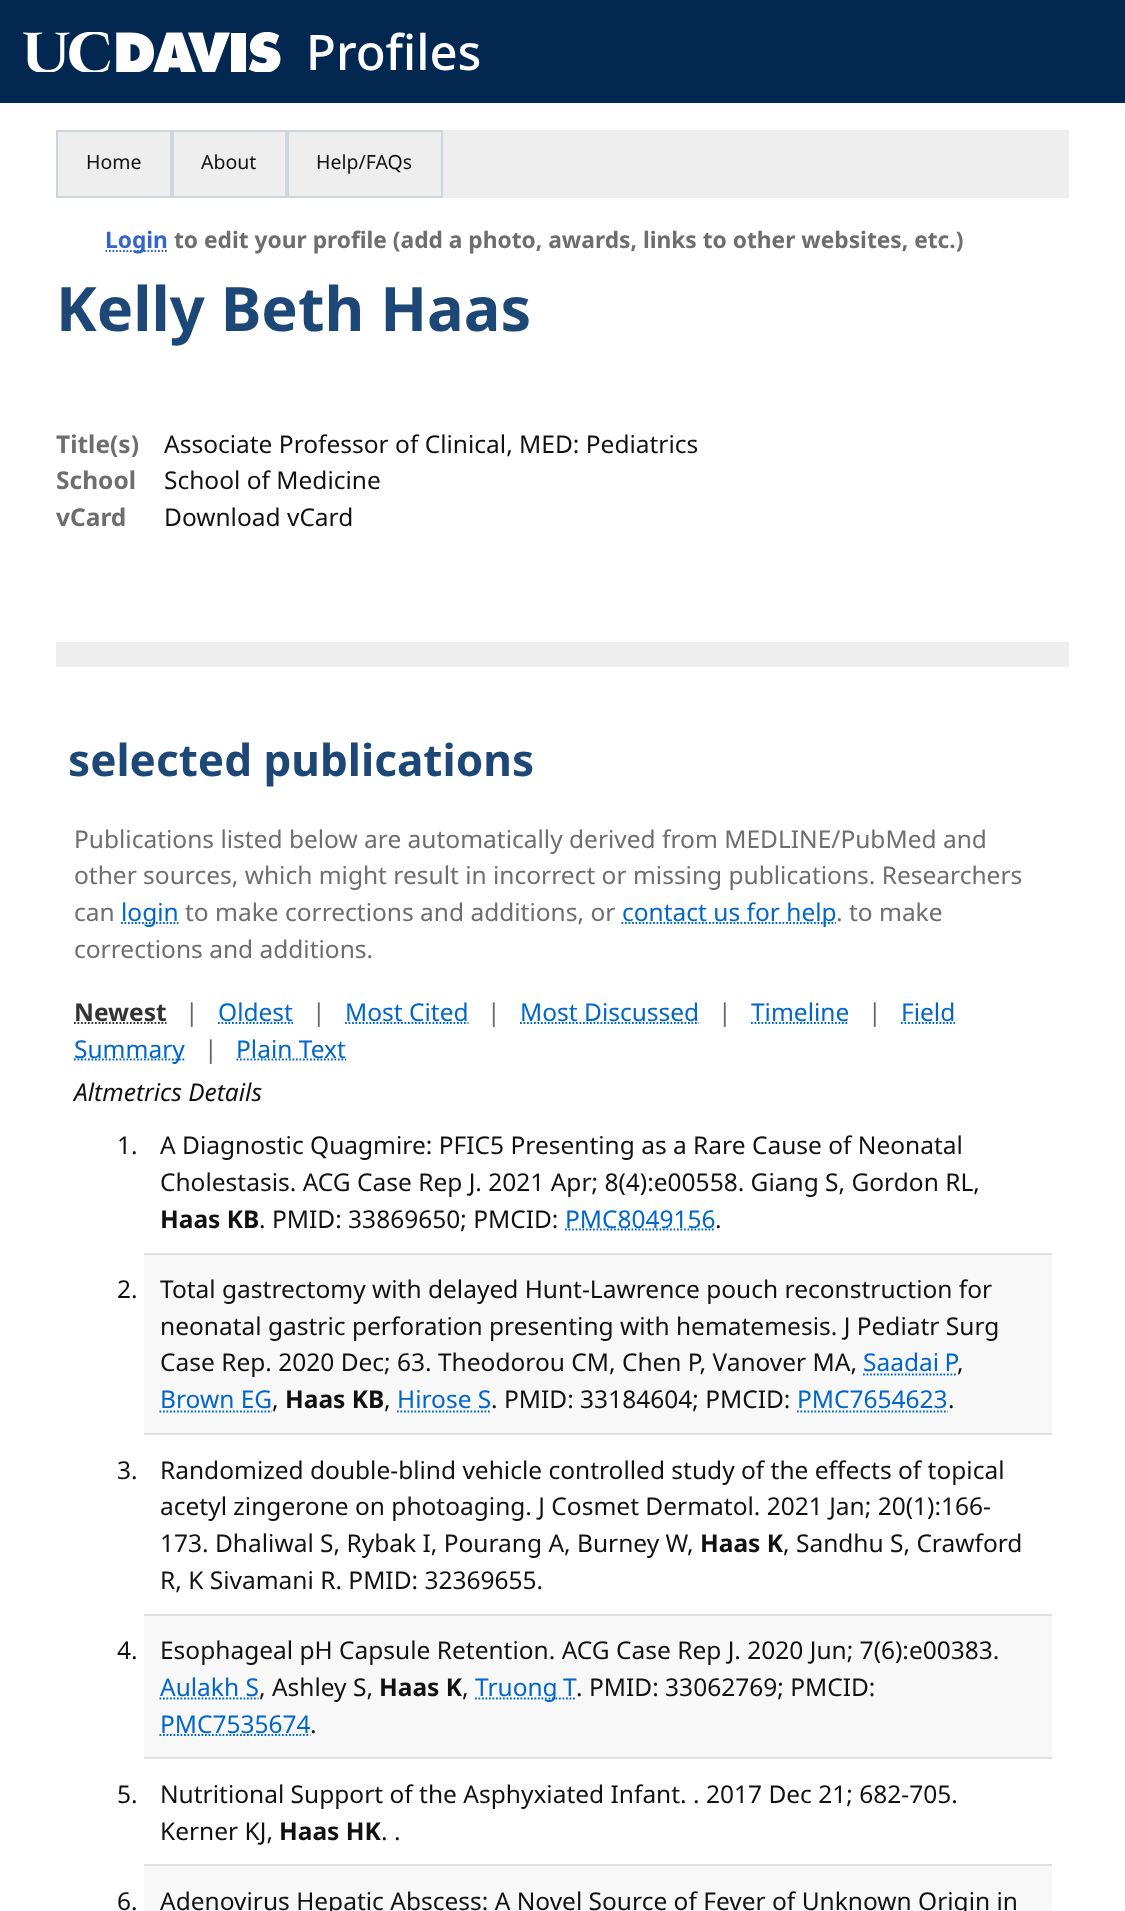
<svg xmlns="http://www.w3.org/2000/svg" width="1125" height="1911">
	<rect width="100%" height="100%" fill="#FFFFFF" />
	<rect x="0" y="0" width="1125" height="103" fill="#022851" />
	<image x="23" y="32" width="258" height="40" href="assets/img1.png" />
	<text x="306" y="70" font-family="Noto Sans" font-size="49" font-weight="500" fill="#FFFFFF">Profiles</text>
	<rect x="58" y="130" width="1011" height="68" fill="#EEEEEE" />
	<rect x="57" y="131" width="114" height="66" fill="none" stroke="#CDD6E0" stroke-width="2" />
	<text x="86" y="169" font-family="Noto Sans" font-size="19.5" fill="#111111">Home</text>
	<rect x="173" y="131" width="113" height="66" fill="none" stroke="#CDD6E0" stroke-width="2" />
	<text x="201" y="169" font-family="Noto Sans" font-size="19.5" fill="#111111">About</text>
	<rect x="288" y="131" width="154" height="66" fill="none" stroke="#CDD6E0" stroke-width="2" />
	<text x="316" y="169" font-family="Noto Sans" font-size="19.5" fill="#111111">Help/FAQs</text>
	<path d="M105.5 251H168" fill="none" stroke="#3366CC" stroke-width="1.8" stroke-dasharray="1.75 1.75" />
	<text x="105" y="248" font-family="Noto Sans" font-size="22.75" font-weight="700" fill="#3366CC">Login</text>
	<text x="174" y="248" font-family="Noto Sans" font-size="22.75" font-weight="700" fill="#6E6E6E">to edit your profile (add a photo, awards, links to other websites, etc.)</text>
	<text x="56" y="331" font-family="Noto Sans" font-size="61.25" font-weight="700" fill="#1D4776">Kelly Beth Haas</text>
	<text x="56" y="453" font-family="Noto Sans" font-size="24.5" font-weight="700" fill="#6E6E6E">Title(s)</text>
	<text x="164" y="453" font-family="Noto Sans" font-size="24.5" fill="#111111">Associate Professor of Clinical, MED: Pediatrics</text>
	<text x="56" y="489" font-family="Noto Sans" font-size="24.5" font-weight="700" fill="#6E6E6E">School</text>
	<text x="164" y="489" font-family="Noto Sans" font-size="24.5" fill="#111111">School of Medicine</text>
	<text x="56" y="526" font-family="Noto Sans" font-size="24.5" font-weight="700" fill="#6E6E6E">vCard</text>
	<text x="164" y="526" font-family="Noto Sans" font-size="24.5" fill="#111111">Download vCard</text>
	<rect x="56" y="642" width="1013" height="25" fill="#EEEEEE" />
	<text x="68" y="776" font-family="Noto Sans" font-size="44.1" font-weight="700" fill="#1D4776">selected publications</text>
	<g font-family="Noto Sans" font-size="24.5" fill="#6E6E6E">
		<text x="74" y="848">Publications listed below are automatically derived from MEDLINE/PubMed and</text>
		<text x="74" y="884">other sources, which might result in incorrect or missing publications. Researchers</text>
		<text x="74" y="921">can</text>
	</g>
	<path d="M121 923H178.5" fill="none" stroke="#0066CC" stroke-width="1.8" stroke-dasharray="1.75 1.75" />
	<text x="121" y="921" font-family="Noto Sans" font-size="24.5" fill="#0066CC">login</text>
	<text x="185" y="921" font-family="Noto Sans" font-size="24.5" fill="#6E6E6E">to make corrections and additions, or</text>
	<path d="M621.5 923H836" fill="none" stroke="#0066CC" stroke-width="1.8" stroke-dasharray="1.75 1.75" />
	<text x="622" y="921" font-family="Noto Sans" font-size="24.5" fill="#0066CC">contact us for help</text>
	<g font-family="Noto Sans" font-size="24.5" fill="#6E6E6E">
		<text x="836" y="921">. to make</text>
		<text x="74" y="958">corrections and additions.</text>
	</g>
	<text x="74" y="1021" font-family="Noto Sans" font-size="24.5" font-weight="700" fill="#333333">Newest</text>
	<path d="M74 1023H166.5" fill="none" stroke="#333333" stroke-width="1.8" stroke-dasharray="1.75 1.75" />
	<text x="185" y="1021" font-family="Noto Sans" font-size="24.5" fill="#666666">|</text>
	<text x="218" y="1021" font-family="Noto Sans" font-size="24.5" fill="#0066CC">Oldest</text>
	<path d="M218 1023H293" fill="none" stroke="#0066CC" stroke-width="1.8" stroke-dasharray="1.75 1.75" />
	<text x="312" y="1021" font-family="Noto Sans" font-size="24.5" fill="#666666">|</text>
	<text x="345" y="1021" font-family="Noto Sans" font-size="24.5" fill="#0066CC">Most Cited</text>
	<path d="M345 1023H468.5" fill="none" stroke="#0066CC" stroke-width="1.8" stroke-dasharray="1.75 1.75" />
	<text x="487" y="1021" font-family="Noto Sans" font-size="24.5" fill="#666666">|</text>
	<text x="520" y="1021" font-family="Noto Sans" font-size="24.5" fill="#0066CC">Most Discussed</text>
	<path d="M520 1023H699" fill="none" stroke="#0066CC" stroke-width="1.8" stroke-dasharray="1.75 1.75" />
	<text x="718" y="1021" font-family="Noto Sans" font-size="24.5" fill="#666666">|</text>
	<text x="751" y="1021" font-family="Noto Sans" font-size="24.5" fill="#0066CC">Timeline</text>
	<path d="M751 1023H849" fill="none" stroke="#0066CC" stroke-width="1.8" stroke-dasharray="1.75 1.75" />
	<text x="868" y="1021" font-family="Noto Sans" font-size="24.5" fill="#666666">|</text>
	<text x="901" y="1021" font-family="Noto Sans" font-size="24.5" fill="#0066CC">Field</text>
	<path d="M901 1023H955" fill="none" stroke="#0066CC" stroke-width="1.8" stroke-dasharray="1.75 1.75" />
	<path d="M74 1059.5H184.5" fill="none" stroke="#0066CC" stroke-width="1.8" stroke-dasharray="1.75 1.75" />
	<text x="74" y="1058" font-family="Noto Sans" font-size="24.5" fill="#0066CC">Summary</text>
	<text x="204" y="1058" font-family="Noto Sans" font-size="24.5" fill="#666666">|</text>
	<path d="M236.5 1059.5H346" fill="none" stroke="#0066CC" stroke-width="1.8" stroke-dasharray="1.75 1.75" />
	<text x="236" y="1058" font-family="Noto Sans" font-size="24.5" fill="#0066CC">Plain Text</text>
	<text x="74" y="1101" font-family="Noto Sans" font-size="24.5" font-style="italic" fill="#111111">Altmetrics Details</text>
	<g font-family="Noto Sans" font-size="24.5" fill="#111111">
		<text x="117" y="1154">1.</text>
		<text x="160" y="1154">A Diagnostic Quagmire: PFIC5 Presenting as a Rare Cause of Neonatal</text>
		<text x="160" y="1191">Cholestasis. ACG Case Rep J. 2021 Apr; 8(4):e00558. Giang S, Gordon RL,</text>
	</g>
	<text x="160" y="1228" font-family="Noto Sans" font-size="24.5" font-weight="700" fill="#111111">Haas KB</text>
	<text x="259" y="1228" font-family="Noto Sans" font-size="24.5" fill="#111111">. PMID: 33869650; PMCID:</text>
	<path d="M565 1229.5H715.5" fill="none" stroke="#0066CC" stroke-width="1.8" stroke-dasharray="1.75 1.75" />
	<text x="565" y="1228" font-family="Noto Sans" font-size="24.5" fill="#0066CC">PMC8049156</text>
	<text x="715" y="1228" font-family="Noto Sans" font-size="24.5" fill="#111111">.</text>
	<rect x="144" y="1255" width="908" height="178" fill="#F8F8F8" />
	<rect x="144" y="1253" width="908" height="2" fill="#E0E0E0" />
	<rect x="144" y="1433" width="908" height="2" fill="#E0E0E0" />
	<g font-family="Noto Sans" font-size="24.5" fill="#111111">
		<text x="117" y="1298">2.</text>
		<text x="160" y="1298">Total gastrectomy with delayed Hunt-Lawrence pouch reconstruction for</text>
		<text x="160" y="1335">neonatal gastric perforation presenting with hematemesis. J Pediatr Surg</text>
		<text x="160" y="1371">Case Rep. 2020 Dec; 63. Theodorou CM, Chen P, Vanover MA,</text>
	</g>
	<text x="863" y="1371" word-spacing="-1" font-family="Noto Sans" font-size="24.5" fill="#0066CC">Saadai P</text>
	<text x="957" y="1371" font-family="Noto Sans" font-size="24.5" fill="#111111">,</text>
	<path d="M863 1374.5H957" fill="none" stroke="#0066CC" stroke-width="1.8" stroke-dasharray="1.75 1.75" />
	<text x="160" y="1408" font-family="Noto Sans" font-size="24.5" fill="#0066CC">Brown EG</text>
	<text x="272" y="1408" font-family="Noto Sans" font-size="24.5" fill="#111111">,</text>
	<path d="M159.5 1411.5H272" fill="none" stroke="#0066CC" stroke-width="1.8" stroke-dasharray="1.75 1.75" />
	<text x="285" y="1408" font-family="Noto Sans" font-size="24.5" font-weight="700" fill="#111111">Haas KB</text>
	<text x="384" y="1408" font-family="Noto Sans" font-size="24.5" fill="#111111">,</text>
	<path d="M397 1411.5H491.5" fill="none" stroke="#0066CC" stroke-width="1.8" stroke-dasharray="1.75 1.75" />
	<text x="397" y="1408" font-family="Noto Sans" font-size="24.5" fill="#0066CC">Hirose S</text>
	<text x="491" y="1408" font-family="Noto Sans" font-size="24.5" fill="#111111">. PMID: 33184604; PMCID:</text>
	<text x="797" y="1408" font-family="Noto Sans" font-size="24.5" fill="#0066CC">PMC7654623</text>
	<text x="948" y="1408" font-family="Noto Sans" font-size="24.5" fill="#111111">.</text>
	<path d="M797 1411.5H948" fill="none" stroke="#0066CC" stroke-width="1.8" stroke-dasharray="1.75 1.75" />
	<g font-family="Noto Sans" font-size="24.5" fill="#111111">
		<text x="117" y="1479">3.</text>
		<text x="160" y="1479">Randomized double-blind vehicle controlled study of the effects of topical</text>
		<text x="160" y="1515">acetyl zingerone on photoaging. J Cosmet Dermatol. 2021 Jan; 20(1):166-</text>
		<text x="160" y="1552">173. Dhaliwal S, Rybak I, Pourang A, Burney W,</text>
	</g>
	<text x="700" y="1552" font-family="Noto Sans" font-size="24.5" font-weight="700" fill="#111111">Haas K</text>
	<g font-family="Noto Sans" font-size="24.5" fill="#111111">
		<text x="783" y="1552">, Sandhu S, Crawford</text>
		<text x="160" y="1589">R, K Sivamani R. PMID: 32369655.</text>
	</g>
	<rect x="144" y="1616" width="908" height="141" fill="#F8F8F8" />
	<rect x="144" y="1614" width="908" height="2" fill="#E0E0E0" />
	<rect x="144" y="1757" width="908" height="2" fill="#E0E0E0" />
	<g font-family="Noto Sans" font-size="24.5" fill="#111111">
		<text x="117" y="1659">4.</text>
		<text x="160" y="1659">Esophageal pH Capsule Retention. ACG Case Rep J. 2020 Jun; 7(6):e00383.</text>
	</g>
	<text x="160" y="1696" font-family="Noto Sans" font-size="24.5" fill="#0066CC">Aulakh S</text>
	<text x="259" y="1696" font-family="Noto Sans" font-size="24.5" fill="#111111">, Ashley S,</text>
	<path d="M159.5 1698.5H258.5" fill="none" stroke="#0066CC" stroke-width="1.8" stroke-dasharray="1.75 1.75" />
	<text x="379" y="1696" font-family="Noto Sans" font-size="24.5" font-weight="700" fill="#111111">Haas K</text>
	<text x="462" y="1696" font-family="Noto Sans" font-size="24.5" fill="#111111">,</text>
	<path d="M475 1698.5H576" fill="none" stroke="#0066CC" stroke-width="1.8" stroke-dasharray="1.75 1.75" />
	<text x="475" y="1696" word-spacing="-1" font-family="Noto Sans" font-size="24.5" fill="#0066CC">Truong T</text>
	<text x="576" y="1696" font-family="Noto Sans" font-size="24.5" fill="#111111">. PMID: 33062769; PMCID:</text>
	<text x="160" y="1733" font-family="Noto Sans" font-size="24.5" fill="#0066CC">PMC7535674</text>
	<text x="310" y="1733" font-family="Noto Sans" font-size="24.5" fill="#111111">.</text>
	<path d="M159.5 1735H310.5" fill="none" stroke="#0066CC" stroke-width="1.8" stroke-dasharray="1.75 1.75" />
	<g font-family="Noto Sans" font-size="24.5" fill="#111111">
		<text x="117" y="1803">5.</text>
		<text x="160" y="1803">Nutritional Support of the Asphyxiated Infant. . 2017 Dec 21; 682-705.</text>
		<text x="160" y="1840">Kerner KJ,</text>
	</g>
	<text x="279" y="1840" font-family="Noto Sans" font-size="24.5" font-weight="700" fill="#111111">Haas HK</text>
	<text x="381" y="1840" font-family="Noto Sans" font-size="24.5" fill="#111111">. .</text>
	<rect x="144" y="1866" width="908" height="45" fill="#F8F8F8" />
	<rect x="144" y="1864" width="908" height="2" fill="#E0E0E0" />
	<g font-family="Noto Sans" font-size="24.5" fill="#111111">
		<text x="117" y="1910">6.</text>
		<text x="160" y="1910">Adenovirus Hepatic Abscess: A Novel Source of Fever of Unknown Origin in</text>
	</g>
</svg>
